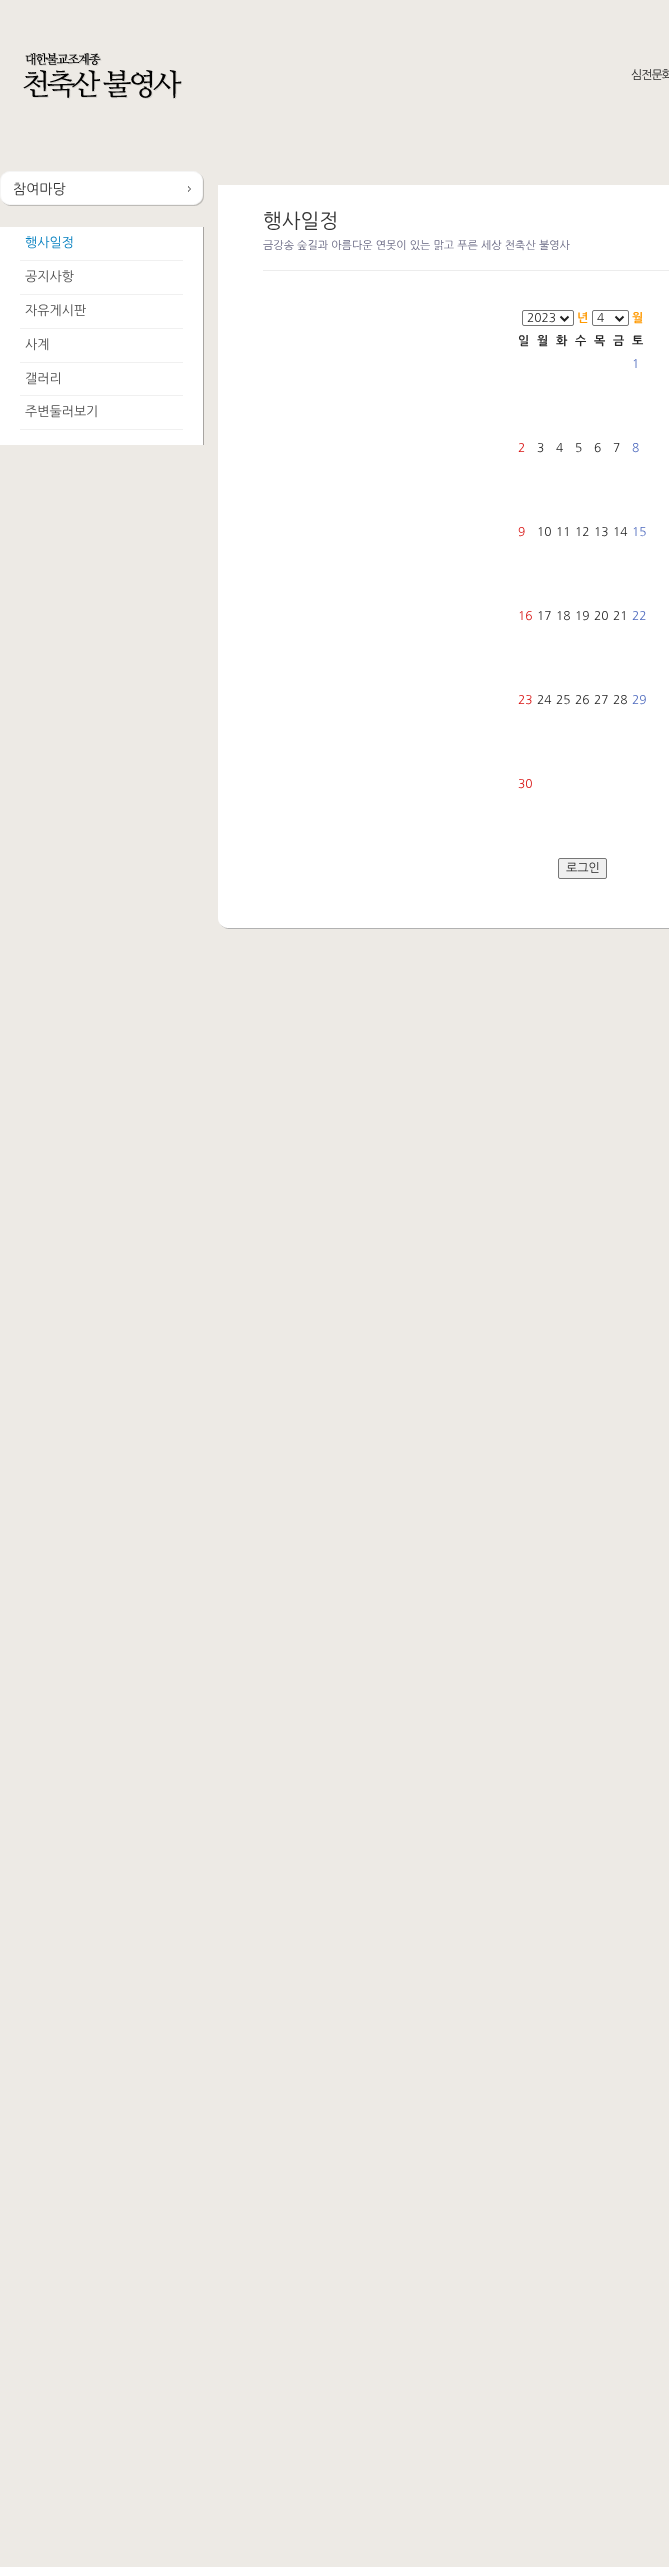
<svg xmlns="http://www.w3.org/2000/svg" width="669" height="2567">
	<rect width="100%" height="100%" fill="#EDEAE5" />
	<image x="23" y="53" width="159" height="46" href="assets/img1.png" />
	<image x="0" y="171" width="204" height="35" href="assets/img2.png" />
	<text x="13" y="194" font-family="NanumGothic" font-size="14" fill="#333333">참여마당</text>
	<rect x="0" y="227" width="203" height="218" fill="#FFFFFF" />
	<rect x="203" y="227" width="1" height="218" fill="#A7A4A1" />
	<rect x="20" y="260" width="163" height="1" fill="#F0F0F0" />
	<text x="25" y="247" font-family="NanumGothic" font-size="13" fill="#007EBF">행사일정</text>
	<rect x="20" y="294" width="163" height="1" fill="#F0F0F0" />
	<text x="25" y="281" font-family="NanumGothic" font-size="13" fill="#4C4C4C">공지사항</text>
	<rect x="20" y="328" width="163" height="1" fill="#F0F0F0" />
	<text x="25" y="315" font-family="NanumGothic" font-size="13" fill="#4C4C4C">자유게시판</text>
	<rect x="20" y="362" width="163" height="1" fill="#F0F0F0" />
	<text x="25" y="349" font-family="NanumGothic" font-size="13" fill="#4C4C4C">사계</text>
	<rect x="20" y="395" width="163" height="1" fill="#F0F0F0" />
	<text x="25" y="383" font-family="NanumGothic" font-size="13" fill="#4C4C4C">갤러리</text>
	<rect x="20" y="429" width="163" height="1" fill="#F0F0F0" />
	<text x="25" y="416" font-family="NanumGothic" font-size="13" fill="#4C4C4C">주변둘러보기</text>
	<text x="631" y="79" font-family="NanumGothic" font-size="12" letter-spacing="-1" fill="#262626">심전문화</text>
	<rect x="218" y="185" width="451" height="733" fill="#FFFFFF" />
	<rect x="263" y="270" width="406" height="1" fill="#ECECEC" />
	<text x="263" y="228" font-family="NanumGothic" font-size="20" fill="#333333">행사일정</text>
	<text x="263" y="249" font-family="NanumGothic" font-size="11" fill="#666681">금강송 숲길과 아름다운 연못이 있는 맑고 푸른 세상 천축산 불영사</text>
	<rect x="522.5" y="310.5" width="51" height="15" rx="1.5" fill="none" stroke="#767676" />
	<path d="M560.5 316.5L564.5 320.5L568.5 316.5" fill="none" stroke="#222222" stroke-width="2" />
	<text x="527" y="322" font-family="NanumGothic" font-size="12" fill="#262626">2023</text>
	<text x="577" y="322" font-family="NanumGothic" font-size="12" font-weight="700" fill="#FF9900">년</text>
	<rect x="592.5" y="310.5" width="36" height="15" rx="1.5" fill="none" stroke="#767676" />
	<path d="M615.5 316.5L619.5 320.5L623.5 316.5" fill="none" stroke="#222222" stroke-width="2" />
	<text x="597" y="322" font-family="NanumGothic" font-size="12" fill="#262626">4</text>
	<text x="632" y="322" font-family="NanumGothic" font-size="12" font-weight="700" fill="#FF9900">월</text>
	<g font-family="NanumGothic" font-size="12" font-weight="700" fill="#262626">
		<text x="518" y="345">일</text>
		<text x="537" y="345">월</text>
		<text x="556" y="345">화</text>
		<text x="575" y="345">수</text>
		<text x="594" y="345">목</text>
		<text x="613" y="345">금</text>
		<text x="632" y="345">토</text>
	</g>
	<text x="632" y="368" font-family="NanumGothic" font-size="12" fill="#4E6ABE">1</text>
	<text x="518" y="452" font-family="NanumGothic" font-size="12" fill="#D81211">2</text>
	<g font-family="NanumGothic" font-size="12" fill="#262626">
		<text x="537" y="452">3</text>
		<text x="556" y="452">4</text>
		<text x="575" y="452">5</text>
		<text x="594" y="452">6</text>
		<text x="613" y="452">7</text>
	</g>
	<text x="632" y="452" font-family="NanumGothic" font-size="12" fill="#4E6ABE">8</text>
	<text x="518" y="536" font-family="NanumGothic" font-size="12" fill="#D81211">9</text>
	<g font-family="NanumGothic" font-size="12" fill="#262626">
		<text x="537" y="536">10</text>
		<text x="556" y="536">11</text>
		<text x="575" y="536">12</text>
		<text x="594" y="536">13</text>
		<text x="613" y="536">14</text>
	</g>
	<text x="632" y="536" font-family="NanumGothic" font-size="12" fill="#4E6ABE">15</text>
	<text x="518" y="620" font-family="NanumGothic" font-size="12" fill="#D81211">16</text>
	<g font-family="NanumGothic" font-size="12" fill="#262626">
		<text x="537" y="620">17</text>
		<text x="556" y="620">18</text>
		<text x="575" y="620">19</text>
		<text x="594" y="620">20</text>
		<text x="613" y="620">21</text>
	</g>
	<text x="632" y="620" font-family="NanumGothic" font-size="12" fill="#4E6ABE">22</text>
	<text x="518" y="704" font-family="NanumGothic" font-size="12" fill="#D81211">23</text>
	<g font-family="NanumGothic" font-size="12" fill="#262626">
		<text x="537" y="704">24</text>
		<text x="556" y="704">25</text>
		<text x="575" y="704">26</text>
		<text x="594" y="704">27</text>
		<text x="613" y="704">28</text>
	</g>
	<text x="632" y="704" font-family="NanumGothic" font-size="12" fill="#4E6ABE">29</text>
	<text x="518" y="788" font-family="NanumGothic" font-size="12" fill="#D81211">30</text>
	<rect x="558.5" y="858.5" width="48" height="20" rx="1.5" fill="#EFEFEF" stroke="#767676" />
	<text x="566" y="872" font-family="NanumGothic" font-size="12" fill="#262626">로그인</text>
	<image x="218" y="918" width="451" height="11" href="assets/img3.png" />
</svg>
